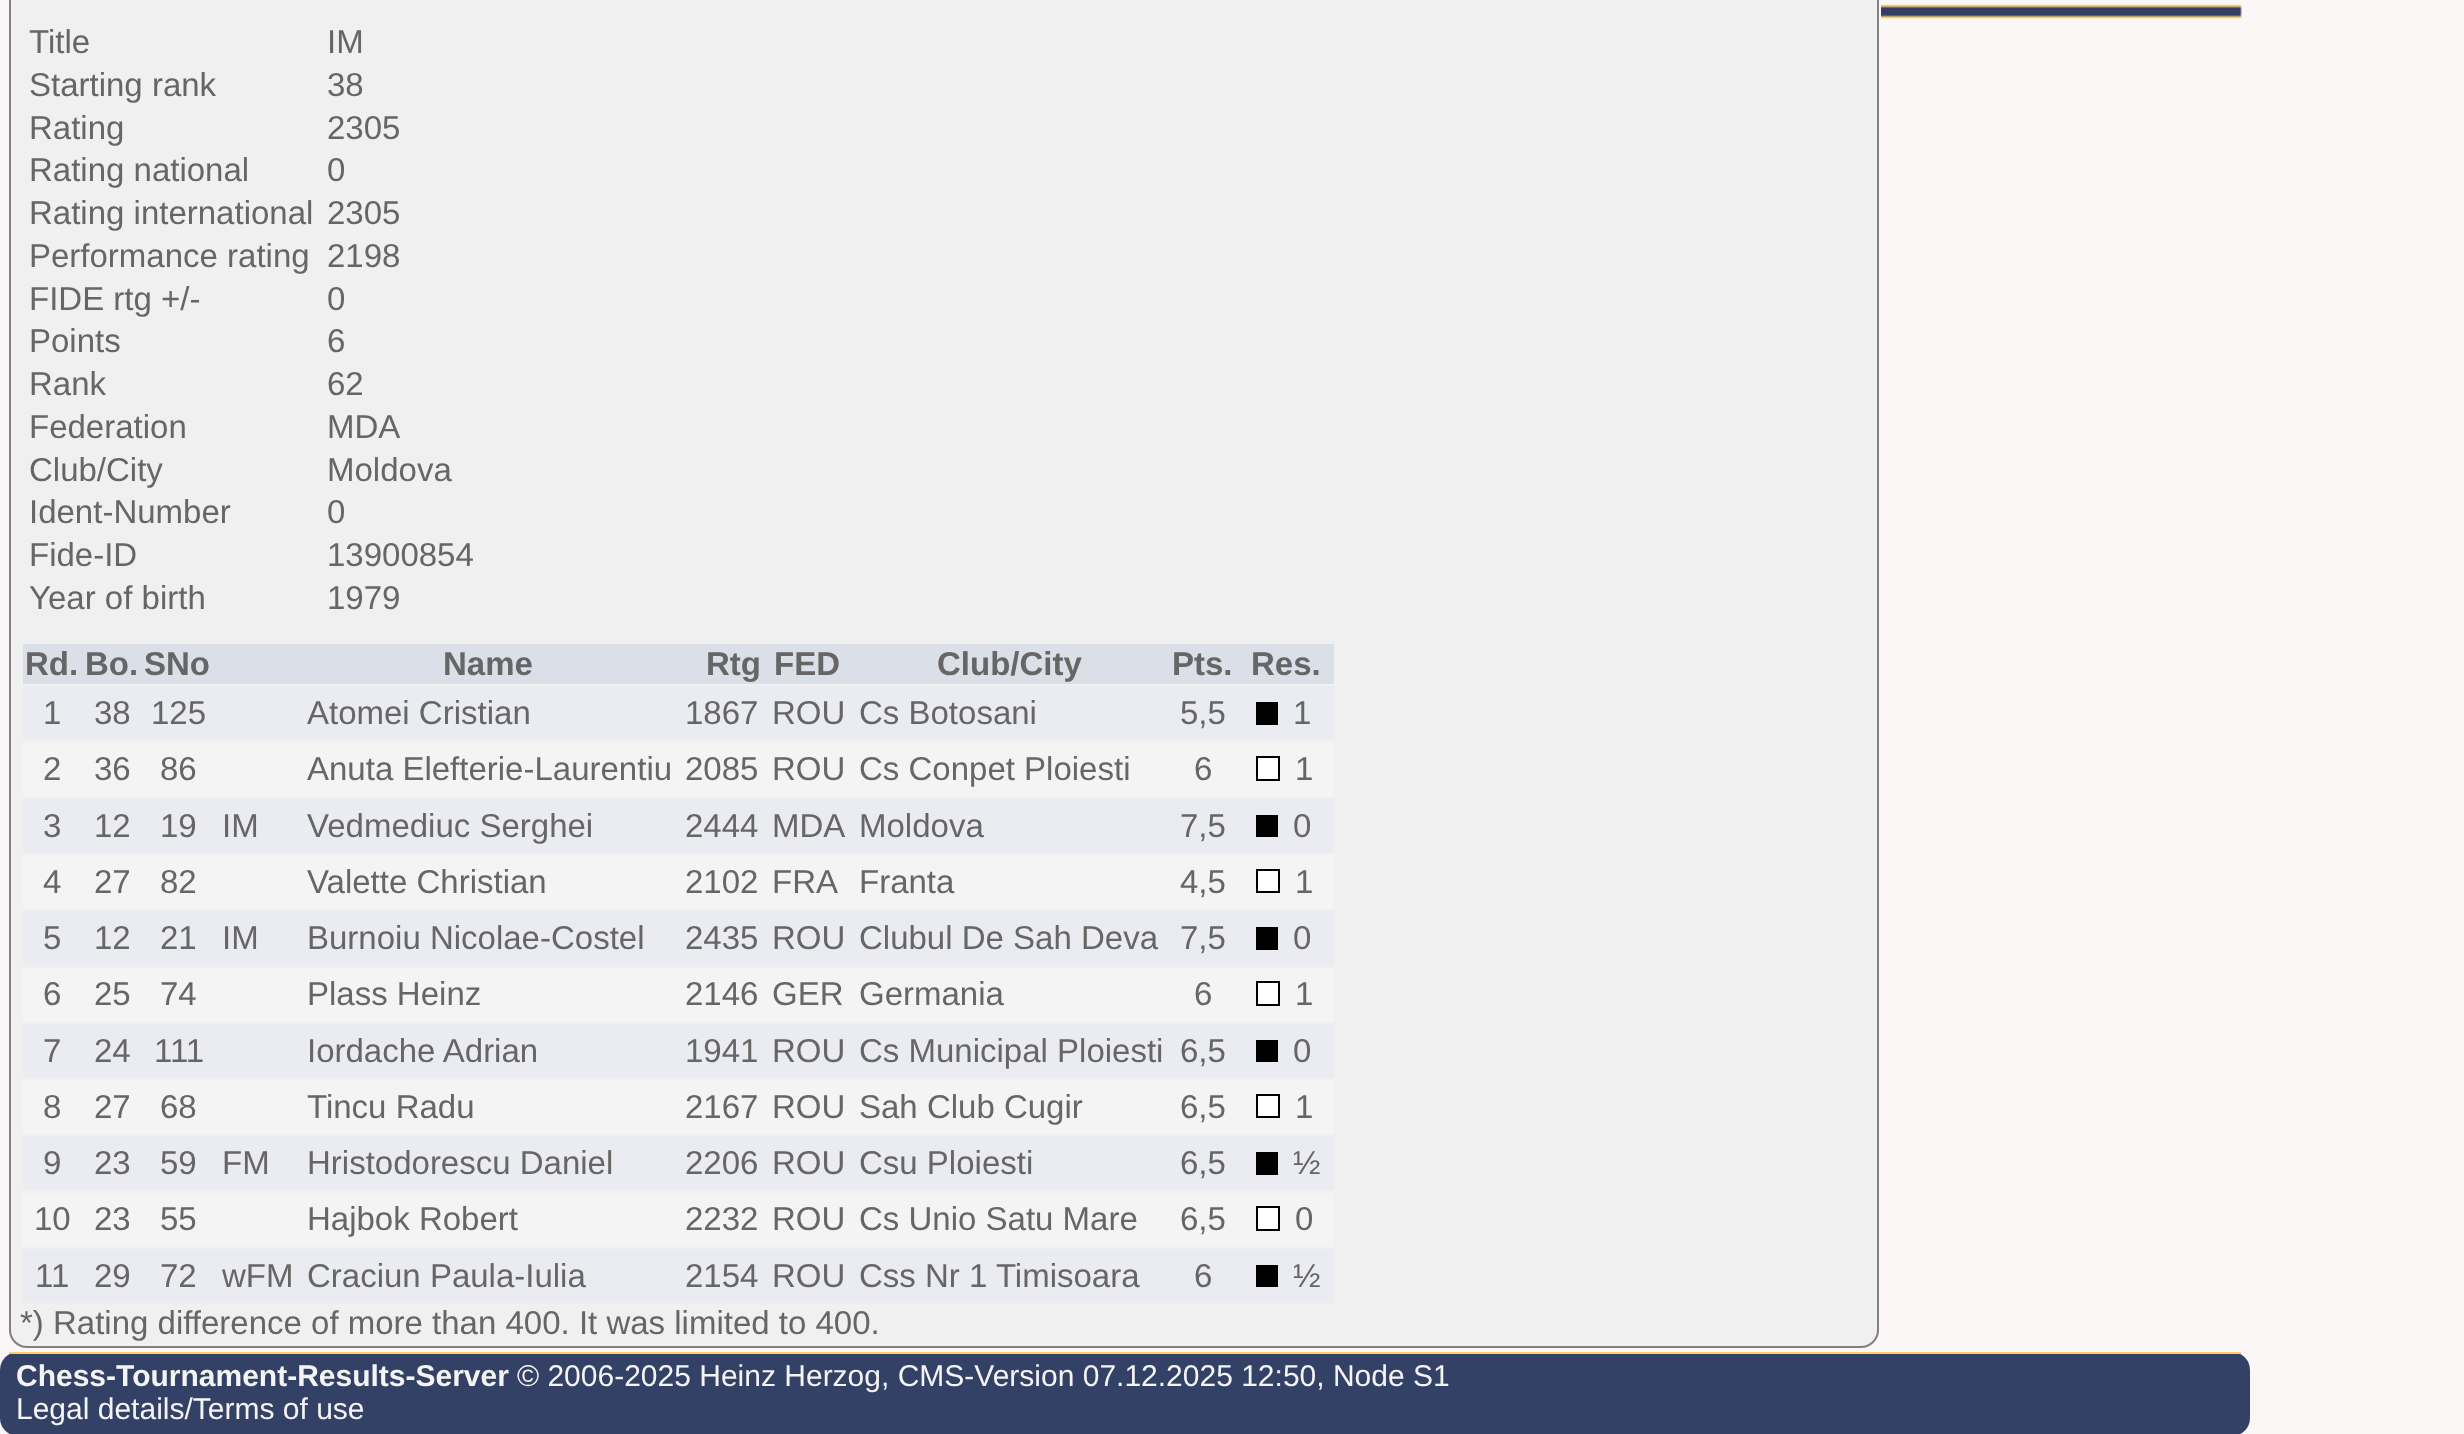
<svg xmlns="http://www.w3.org/2000/svg" width="2464" height="1434">
	<rect width="100%" height="100%" fill="#FBF7F7" />
	<image x="1881" y="4" width="361" height="15" href="assets/img1.png" />
	<rect x="10" y="-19" width="1868" height="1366" rx="17" fill="#F0F0F0" stroke="#808080" stroke-width="2" />
	<g font-family="Liberation Sans" font-size="33" fill="#666666">
		<text x="29" y="53">Title</text>
		<text x="327" y="53">IM</text>
		<text x="29" y="96">Starting rank</text>
		<text x="327" y="96">38</text>
		<text x="29" y="139">Rating</text>
		<text x="327" y="139">2305</text>
		<text x="29" y="181">Rating national</text>
		<text x="327" y="181">0</text>
		<text x="29" y="224">Rating international</text>
		<text x="327" y="224">2305</text>
		<text x="29" y="267">Performance rating</text>
		<text x="327" y="267">2198</text>
		<text x="29" y="310">FIDE rtg +/-</text>
		<text x="327" y="310">0</text>
		<text x="29" y="352">Points</text>
		<text x="327" y="352">6</text>
		<text x="29" y="395">Rank</text>
		<text x="327" y="395">62</text>
		<text x="29" y="438">Federation</text>
		<text x="327" y="438">MDA</text>
		<text x="29" y="481">Club/City</text>
		<text x="327" y="481">Moldova</text>
		<text x="29" y="523">Ident-Number</text>
		<text x="327" y="523">0</text>
		<text x="29" y="566">Fide-ID</text>
		<text x="327" y="566">13900854</text>
		<text x="29" y="609">Year of birth</text>
		<text x="327" y="609">1979</text>
	</g>
	<rect x="23" y="644" width="1311" height="40" fill="#DBDFE8" />
	<g font-family="Liberation Sans" font-size="33" font-weight="700" fill="#666666">
		<text x="25" y="675">Rd.</text>
		<text x="85" y="675">Bo.</text>
		<text x="144" y="675">SNo</text>
		<text x="443" y="675">Name</text>
		<text x="706" y="675">Rtg</text>
		<text x="774" y="675">FED</text>
		<text x="937" y="675">Club/City</text>
		<text x="1172" y="675">Pts.</text>
		<text x="1251" y="675">Res.</text>
	</g>
	<rect x="23" y="686" width="1311" height="54" fill="#EBECF1" />
	<g font-family="Liberation Sans" font-size="33" fill="#666666">
		<text x="43" y="724">1</text>
		<text x="94" y="724">38</text>
		<text x="151" y="724">125</text>
		<text x="307" y="724">Atomei Cristian</text>
		<text x="685" y="724">1867</text>
		<text x="772" y="724">ROU</text>
		<text x="859" y="724">Cs Botosani</text>
		<text x="1180" y="724">5,5</text>
	</g>
	<rect x="1256" y="702" width="22" height="23" fill="#000000" />
	<text x="1293" y="724" font-family="Liberation Sans" font-size="33" fill="#666666">1</text>
	<rect x="23" y="743" width="1311" height="54" fill="#F4F4F4" />
	<g font-family="Liberation Sans" font-size="33" fill="#666666">
		<text x="43" y="780">2</text>
		<text x="94" y="780">36</text>
		<text x="160" y="780">86</text>
		<text x="307" y="780">Anuta Elefterie-Laurentiu</text>
		<text x="685" y="780">2085</text>
		<text x="772" y="780">ROU</text>
		<text x="859" y="780">Cs Conpet Ploiesti</text>
		<text x="1194" y="780">6</text>
	</g>
	<rect x="1257" y="757" width="22" height="23" fill="#FFFFFF" stroke="#000000" stroke-width="2" />
	<text x="1295" y="780" font-family="Liberation Sans" font-size="33" fill="#666666">1</text>
	<rect x="23" y="799" width="1311" height="54" fill="#EBECF1" />
	<g font-family="Liberation Sans" font-size="33" fill="#666666">
		<text x="43" y="837">3</text>
		<text x="94" y="837">12</text>
		<text x="160" y="837">19</text>
		<text x="222" y="837">IM</text>
		<text x="307" y="837">Vedmediuc Serghei</text>
		<text x="685" y="837">2444</text>
		<text x="772" y="837">MDA</text>
		<text x="859" y="837">Moldova</text>
		<text x="1180" y="837">7,5</text>
	</g>
	<rect x="1256" y="815" width="22" height="22" fill="#000000" />
	<text x="1293" y="837" font-family="Liberation Sans" font-size="33" fill="#666666">0</text>
	<rect x="23" y="855" width="1311" height="54" fill="#F4F4F4" />
	<g font-family="Liberation Sans" font-size="33" fill="#666666">
		<text x="43" y="893">4</text>
		<text x="94" y="893">27</text>
		<text x="160" y="893">82</text>
		<text x="307" y="893">Valette Christian</text>
		<text x="685" y="893">2102</text>
		<text x="772" y="893">FRA</text>
		<text x="859" y="893">Franta</text>
		<text x="1180" y="893">4,5</text>
	</g>
	<rect x="1257" y="870" width="22" height="22" fill="#FFFFFF" stroke="#000000" stroke-width="2" />
	<text x="1295" y="893" font-family="Liberation Sans" font-size="33" fill="#666666">1</text>
	<rect x="23" y="911" width="1311" height="54" fill="#EBECF1" />
	<g font-family="Liberation Sans" font-size="33" fill="#666666">
		<text x="43" y="949">5</text>
		<text x="94" y="949">12</text>
		<text x="160" y="949">21</text>
		<text x="222" y="949">IM</text>
		<text x="307" y="949">Burnoiu Nicolae-Costel</text>
		<text x="685" y="949">2435</text>
		<text x="772" y="949">ROU</text>
		<text x="859" y="949">Clubul De Sah Deva</text>
		<text x="1180" y="949">7,5</text>
	</g>
	<rect x="1256" y="927" width="22" height="23" fill="#000000" />
	<text x="1293" y="949" font-family="Liberation Sans" font-size="33" fill="#666666">0</text>
	<rect x="23" y="968" width="1311" height="54" fill="#F4F4F4" />
	<g font-family="Liberation Sans" font-size="33" fill="#666666">
		<text x="43" y="1005">6</text>
		<text x="94" y="1005">25</text>
		<text x="160" y="1005">74</text>
		<text x="307" y="1005">Plass Heinz</text>
		<text x="685" y="1005">2146</text>
		<text x="772" y="1005">GER</text>
		<text x="859" y="1005">Germania</text>
		<text x="1194" y="1005">6</text>
	</g>
	<rect x="1257" y="982" width="22" height="23" fill="#FFFFFF" stroke="#000000" stroke-width="2" />
	<text x="1295" y="1005" font-family="Liberation Sans" font-size="33" fill="#666666">1</text>
	<rect x="23" y="1024" width="1311" height="54" fill="#EBECF1" />
	<g font-family="Liberation Sans" font-size="33" fill="#666666">
		<text x="43" y="1062">7</text>
		<text x="94" y="1062">24</text>
		<text x="154" y="1062">111</text>
		<text x="307" y="1062">Iordache Adrian</text>
		<text x="685" y="1062">1941</text>
		<text x="772" y="1062">ROU</text>
		<text x="859" y="1062">Cs Municipal Ploiesti</text>
		<text x="1180" y="1062">6,5</text>
	</g>
	<rect x="1256" y="1040" width="22" height="22" fill="#000000" />
	<text x="1293" y="1062" font-family="Liberation Sans" font-size="33" fill="#666666">0</text>
	<rect x="23" y="1080" width="1311" height="54" fill="#F4F4F4" />
	<g font-family="Liberation Sans" font-size="33" fill="#666666">
		<text x="43" y="1118">8</text>
		<text x="94" y="1118">27</text>
		<text x="160" y="1118">68</text>
		<text x="307" y="1118">Tincu Radu</text>
		<text x="685" y="1118">2167</text>
		<text x="772" y="1118">ROU</text>
		<text x="859" y="1118">Sah Club Cugir</text>
		<text x="1180" y="1118">6,5</text>
	</g>
	<rect x="1257" y="1095" width="22" height="22" fill="#FFFFFF" stroke="#000000" stroke-width="2" />
	<text x="1295" y="1118" font-family="Liberation Sans" font-size="33" fill="#666666">1</text>
	<rect x="23" y="1136" width="1311" height="54" fill="#EBECF1" />
	<g font-family="Liberation Sans" font-size="33" fill="#666666">
		<text x="43" y="1174">9</text>
		<text x="94" y="1174">23</text>
		<text x="160" y="1174">59</text>
		<text x="222" y="1174">FM</text>
		<text x="307" y="1174">Hristodorescu Daniel</text>
		<text x="685" y="1174">2206</text>
		<text x="772" y="1174">ROU</text>
		<text x="859" y="1174">Csu Ploiesti</text>
		<text x="1180" y="1174">6,5</text>
	</g>
	<rect x="1256" y="1152" width="22" height="23" fill="#000000" />
	<text x="1293" y="1174" font-family="Liberation Sans" font-size="33" fill="#666666">½</text>
	<rect x="23" y="1193" width="1311" height="54" fill="#F4F4F4" />
	<g font-family="Liberation Sans" font-size="33" fill="#666666">
		<text x="34" y="1230">10</text>
		<text x="94" y="1230">23</text>
		<text x="160" y="1230">55</text>
		<text x="307" y="1230">Hajbok Robert</text>
		<text x="685" y="1230">2232</text>
		<text x="772" y="1230">ROU</text>
		<text x="859" y="1230">Cs Unio Satu Mare</text>
		<text x="1180" y="1230">6,5</text>
	</g>
	<rect x="1257" y="1207" width="22" height="23" fill="#FFFFFF" stroke="#000000" stroke-width="2" />
	<text x="1295" y="1230" font-family="Liberation Sans" font-size="33" fill="#666666">0</text>
	<rect x="23" y="1249" width="1311" height="54" fill="#EBECF1" />
	<g font-family="Liberation Sans" font-size="33" fill="#666666">
		<text x="35" y="1287">11</text>
		<text x="94" y="1287">29</text>
		<text x="160" y="1287">72</text>
		<text x="222" y="1287">wFM</text>
		<text x="307" y="1287">Craciun Paula-Iulia</text>
		<text x="685" y="1287">2154</text>
		<text x="772" y="1287">ROU</text>
		<text x="859" y="1287">Css Nr 1 Timisoara</text>
		<text x="1194" y="1287">6</text>
	</g>
	<rect x="1256" y="1265" width="22" height="22" fill="#000000" />
	<g font-family="Liberation Sans" font-size="33" fill="#666666">
		<text x="1293" y="1287">½</text>
		<text x="20" y="1334">*) Rating difference of more than 400. It was limited to 400.</text>
	</g>
	<rect x="0" y="1352" width="2250" height="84" rx="18" fill="#334166" />
	<rect x="9" y="1352" width="2232" height="2" fill="#FFCC66" />
	<text x="16" y="1386" font-family="Liberation Sans" font-size="30" font-weight="700" fill="#F4F4F4">Chess-Tournament-Results-Server</text>
	<g font-family="Liberation Sans" font-size="30" fill="#F4F4F4">
		<text x="517" y="1386">© 2006-2025 Heinz Herzog, CMS-Version 07.12.2025 12:50, Node S1</text>
		<text x="16" y="1419">Legal details/Terms of use</text>
	</g>
</svg>
